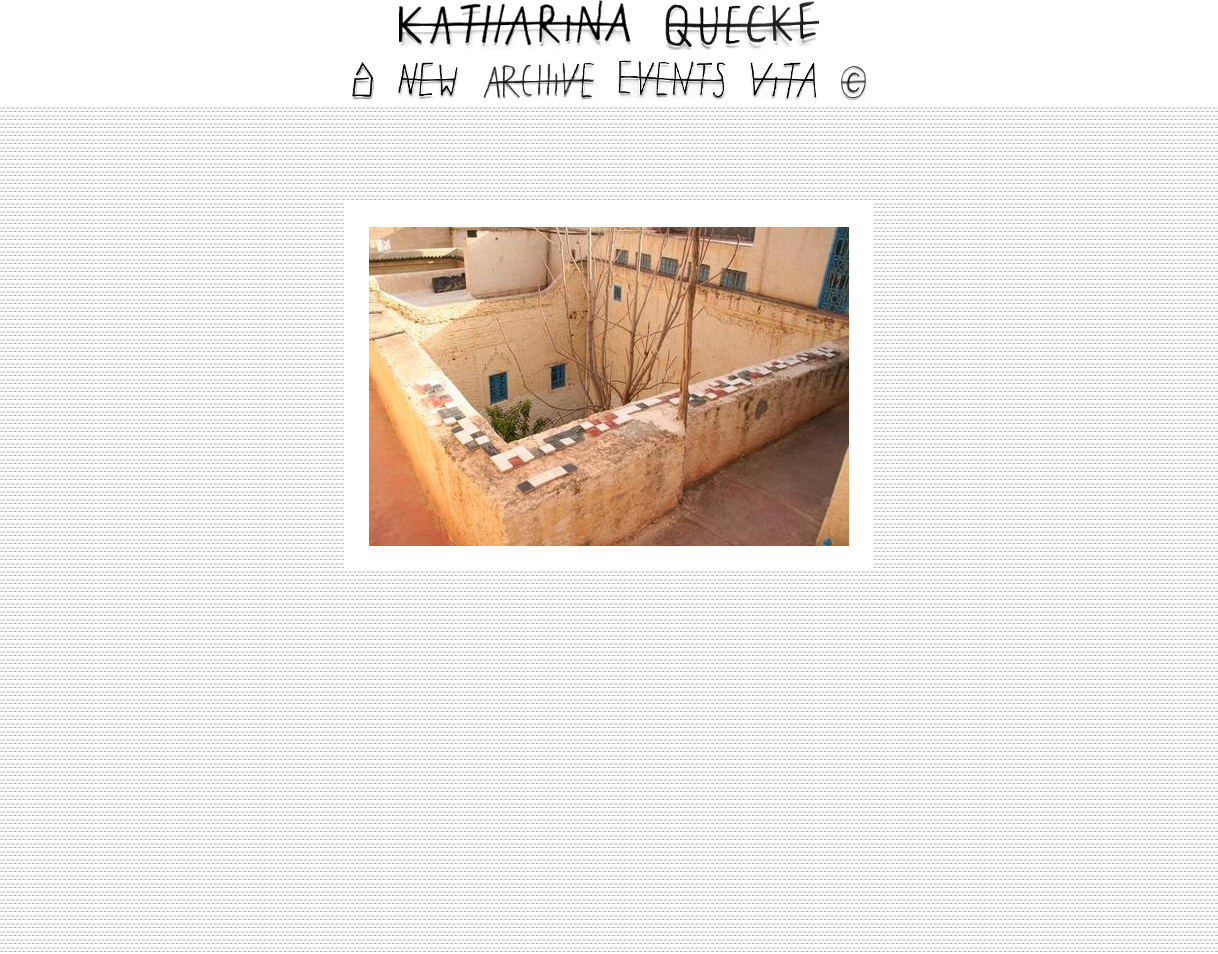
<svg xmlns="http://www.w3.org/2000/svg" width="1218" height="954">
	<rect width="100%" height="100%" fill="#FFFFFF" />
	<image x="0" y="107" width="1218" height="845" href="assets/img1.png" />
	<image x="399" y="0" width="420" height="50" href="assets/img2.png" />
	<image x="352" y="62" width="22" height="38" href="assets/img3.png" />
	<image x="398" y="62" width="61" height="38" href="assets/img4.png" />
	<image x="483" y="63" width="112" height="37" href="assets/img5.png" />
	<image x="618" y="60" width="108" height="40" href="assets/img6.png" />
	<image x="750" y="62" width="67" height="38" href="assets/img7.png" />
	<image x="841" y="66" width="25" height="34" href="assets/img8.png" />
	<rect x="344" y="203" width="530" height="365" fill="#FFFFFF" />
	<image x="369" y="227" width="480" height="319" href="assets/img9.png" />
</svg>
